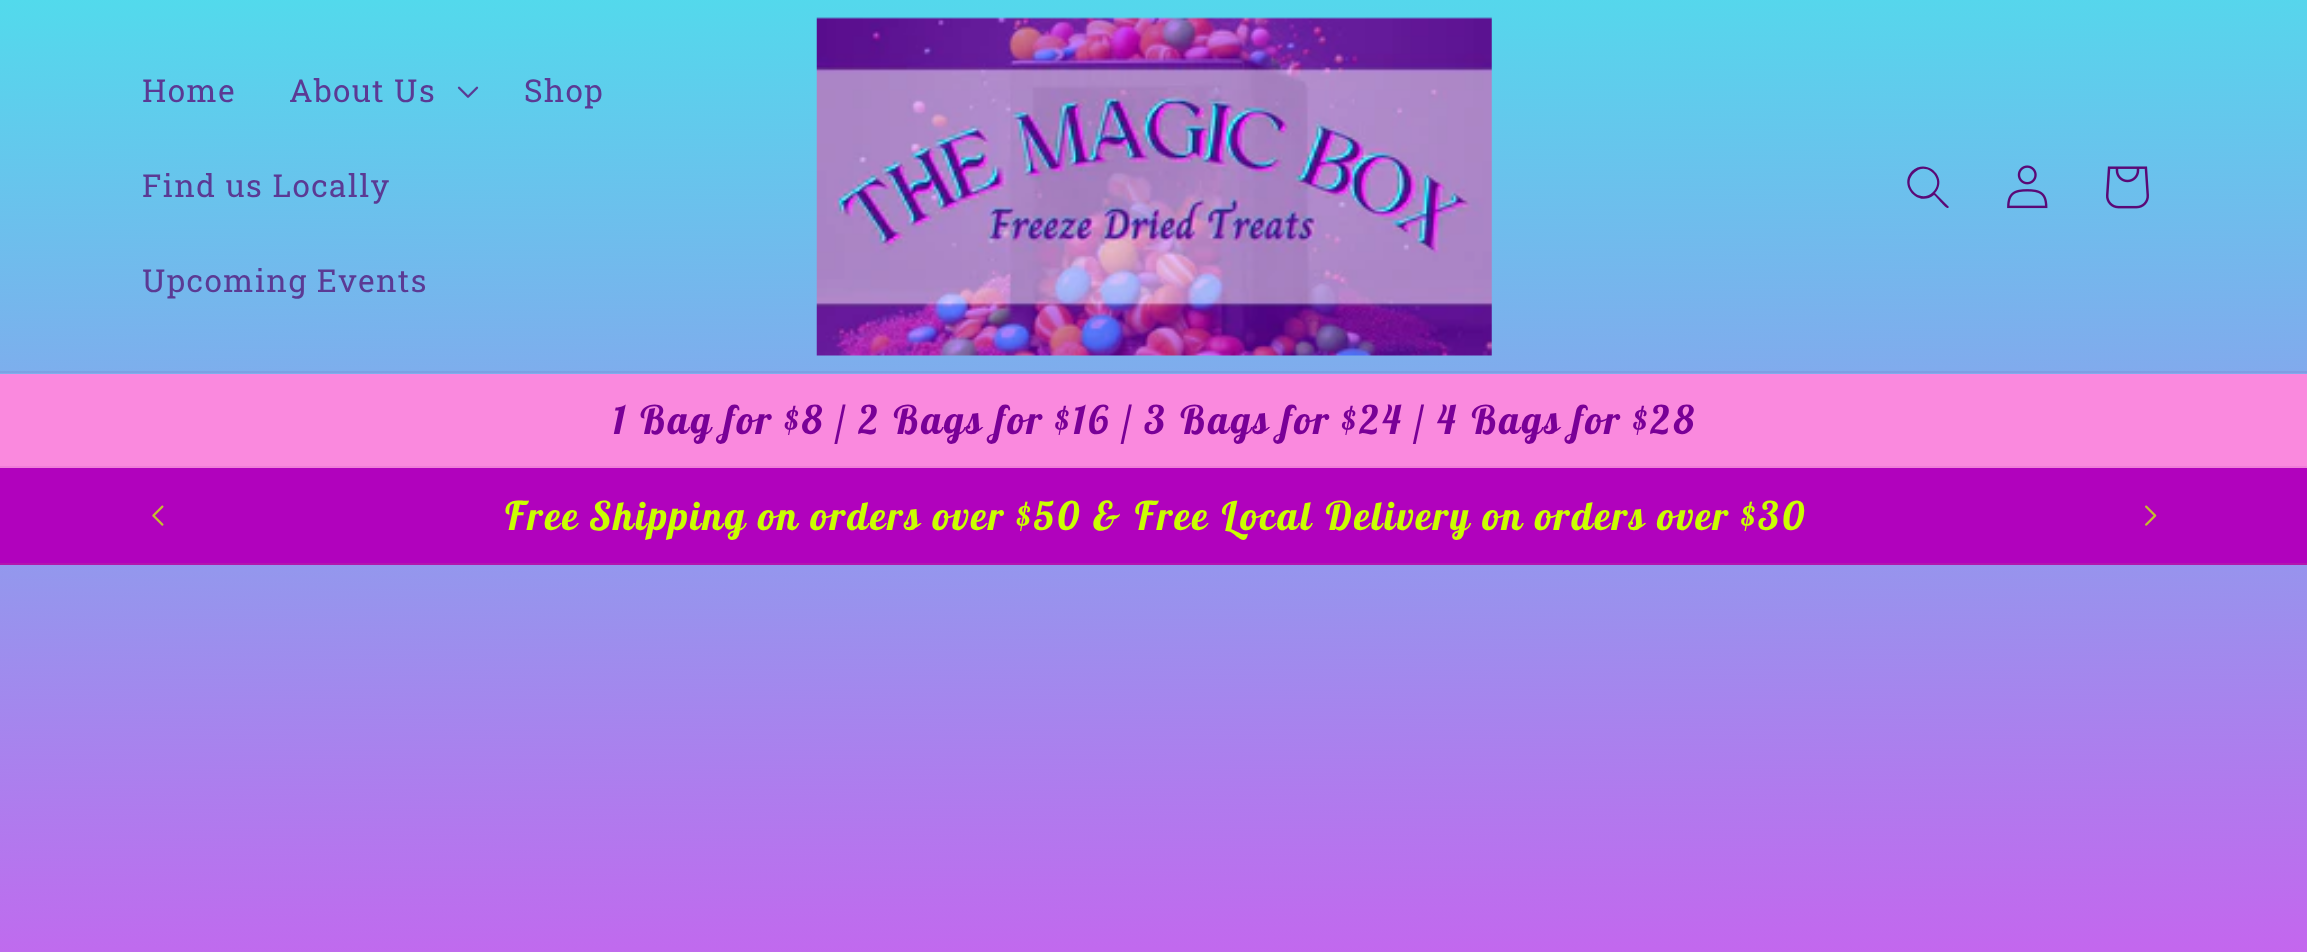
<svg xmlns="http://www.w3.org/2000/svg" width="2307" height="952">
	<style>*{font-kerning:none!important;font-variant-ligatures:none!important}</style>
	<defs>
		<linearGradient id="g1" gradientUnits="userSpaceOnUse" x1="1163" y1="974" x2="1146" y2="-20"><stop offset="0" stop-color="#C466EE" /><stop offset="1" stop-color="#52DAEC" /></linearGradient>
		<linearGradient id="g2" gradientUnits="userSpaceOnUse" x1="1163" y1="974" x2="1146" y2="-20"><stop offset="0" stop-color="#BC5FE4" /><stop offset="1" stop-color="#53C9E3" /></linearGradient>
	</defs>
	<rect width="100%" height="100%" fill="#FFFFFF" />
	<rect x="0" y="0" width="2307" height="952" fill="url(#g1)" />
	<rect x="0" y="371" width="2307" height="2" fill="url(#g2)" />
	<g font-family="Roboto Slab" font-size="31.5" letter-spacing="1.4" fill="#5B3A94">
		<text x="142" y="102">Home</text>
		<text x="289" y="102">About Us</text>
	</g>
	<image x="457" y="86" width="22" height="12" href="assets/img1.png" />
	<g font-family="Roboto Slab" font-size="31.5" letter-spacing="1.4" fill="#5B3A94">
		<text x="524" y="102">Shop</text>
		<text x="142" y="197">Find us Locally</text>
		<text x="142" y="292">Upcoming Events</text>
	</g>
	<image x="816" y="17" width="676" height="339" href="assets/img2.png" />
	<path d="M1933 192C1920 205 1901 185 1914 173C1926 160 1946 179 1933 192ZM1934 195C1918 208 1898 185 1912 171C1927 157 1949 178 1935 193L1949 207L1948 208C1946 209 1936 196 1934 195Z" fill="#5A0976" fill-rule="evenodd" />
	<image x="2007" y="165" width="41" height="44" href="assets/img3.png" />
	<image x="2106" y="166" width="43" height="43" href="assets/img4.png" />
	<rect x="0" y="374" width="2307" height="92" fill="#FA89DE" />
	<rect x="0" y="466" width="2307" height="2" fill="#F07ED8" />
	<text x="612" y="434" font-family="Lobster Two" font-size="39.5" font-weight="700" font-style="italic" letter-spacing="2.25" fill="#790097">1 Bag for $8 / 2 Bags for $16 / 3 Bags for $24 / 4 Bags for $28</text>
	<rect x="0" y="468" width="2307" height="95" fill="#B102BD" />
	<rect x="0" y="563" width="2307" height="2" fill="#B316AE" />
	<image x="152" y="505" width="12" height="21" href="assets/img5.png" />
	<text x="503" y="530" font-family="Lobster Two" font-size="39.5" font-weight="700" font-style="italic" letter-spacing="2.25" fill="#CAFF00">Free Shipping on orders over $50 &amp; Free Local Delivery on orders over $30</text>
	<image x="2145" y="505" width="12" height="21" href="assets/img6.png" />
</svg>
